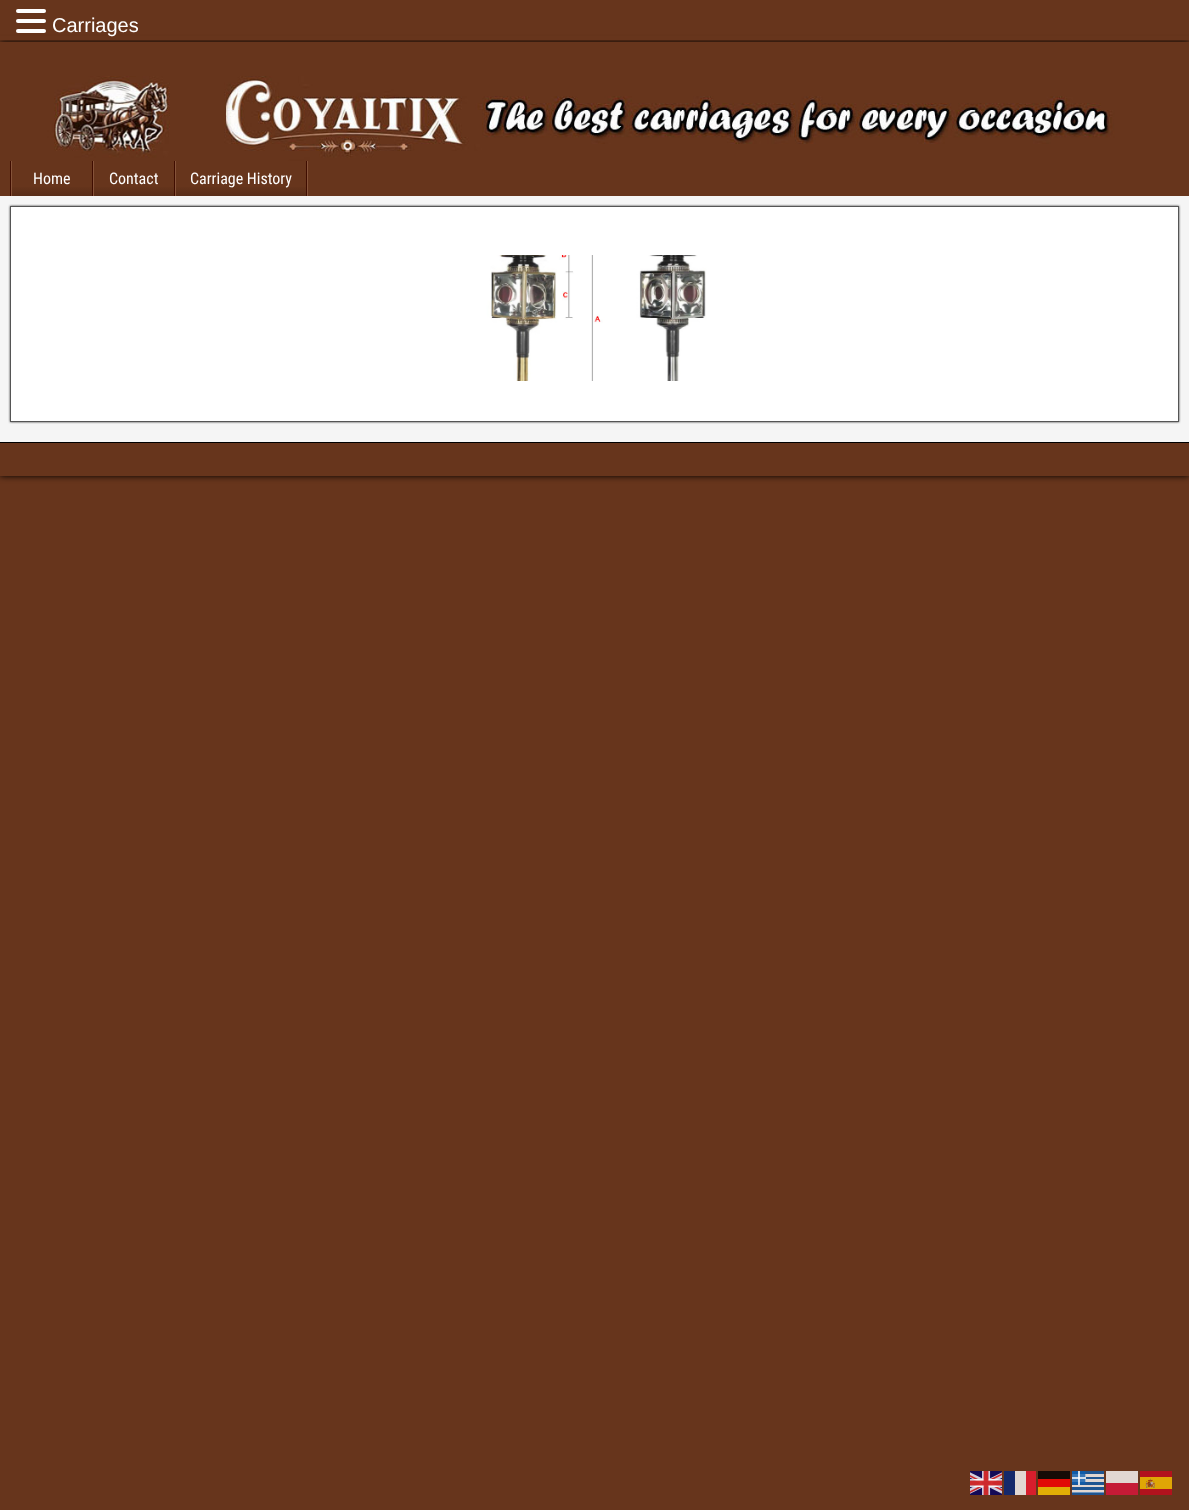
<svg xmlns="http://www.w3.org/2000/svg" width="1189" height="1510">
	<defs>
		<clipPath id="clip1"><path d="M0 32H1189V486H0ZM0 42H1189V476H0Z" clip-rule="evenodd" /></clipPath>
		<linearGradient id="g1" gradientUnits="userSpaceOnUse" x1="52" y1="161" x2="52" y2="196"><stop offset="0.7" stop-color="#67351C" /><stop offset="1" stop-color="#582D18" /></linearGradient>
		<linearGradient id="g2" gradientUnits="userSpaceOnUse" x1="134" y1="161" x2="134" y2="196"><stop offset="0.7" stop-color="#67351C" /><stop offset="1" stop-color="#582D18" /></linearGradient>
		<linearGradient id="g3" gradientUnits="userSpaceOnUse" x1="241" y1="161" x2="241" y2="196"><stop offset="0.7" stop-color="#67351C" /><stop offset="1" stop-color="#582D18" /></linearGradient>
	</defs>
	<rect width="100%" height="100%" fill="#67351C" />
	<g clip-path="url(#clip1)">
		<rect x="0" y="42" width="1189" height="434" fill="#000000" filter="blur(3px)" />
	</g>
	<rect x="0" y="36" width="1189" height="4" fill="#67351C" />
	<rect x="16" y="9" width="30" height="4" rx="2" fill="#FFFFFF" />
	<rect x="16" y="19" width="30" height="4" rx="2" fill="#FFFFFF" />
	<rect x="16" y="29" width="30" height="4" rx="2" fill="#FFFFFF" />
	<text x="52" y="32" font-family="Liberation Sans" font-size="20" fill="#FFFFFF">Carriages</text>
	<image x="0" y="76" width="1189" height="85" href="assets/img1.png" />
	<rect x="307" y="161" width="1" height="35" fill="#85533A" />
	<rect x="10" y="161" width="1" height="35" fill="#3F0D00" />
	<rect x="12" y="187" width="80" height="9" fill="url(#g1)" />
	<rect x="92" y="161" width="1" height="35" fill="#3F0D00" />
	<rect x="11" y="161" width="1" height="35" fill="#85533A" />
	<text x="33" y="184" font-family="Roboto Condensed" font-size="16" fill="#FFFFFF">Home</text>
	<rect x="94" y="187" width="80" height="9" fill="url(#g2)" />
	<rect x="174" y="161" width="1" height="35" fill="#3F0D00" />
	<rect x="93" y="161" width="1" height="35" fill="#85533A" />
	<text x="109" y="184" font-family="Roboto Condensed" font-size="16" fill="#FFFFFF">Contact</text>
	<rect x="176" y="187" width="130" height="9" fill="url(#g3)" />
	<rect x="306" y="161" width="1" height="35" fill="#3F0D00" />
	<rect x="175" y="161" width="1" height="35" fill="#85533A" />
	<text x="190" y="184" font-family="Roboto Condensed" font-size="16" fill="#FFFFFF">Carriage History</text>
	<rect x="0" y="196" width="1189" height="246" fill="#F5F5F5" />
	<rect x="10" y="206" width="1169" height="216" fill="#333333" filter="blur(1px)" />
	<rect x="10.5" y="206.5" width="1168" height="215" fill="#FFFFFF" stroke="#555555" />
	<image x="482" y="255" width="225" height="126" href="assets/img2.png" />
	<rect x="0" y="442" width="1189" height="1" fill="#000000" />
	<image x="970" y="1471" width="32" height="24" href="assets/img3.png" />
	<rect x="1004" y="1471" width="11" height="24" fill="#15296B" />
	<rect x="1015" y="1471" width="11" height="24" fill="#E1D7D2" />
	<rect x="1026" y="1471" width="10" height="24" fill="#D71E2C" />
	<rect x="1038" y="1471" width="32" height="8" fill="#150B06" />
	<image x="1072" y="1471" width="32" height="24" href="assets/img4.png" />
	<rect x="1106" y="1471" width="32" height="12" fill="#E1D7D2" />
	<image x="1140" y="1471" width="32" height="24" href="assets/img5.png" />
	<rect x="1038" y="1479" width="32" height="8" fill="#E10B06" />
	<rect x="1106" y="1483" width="32" height="12" fill="#C51B36" />
	<rect x="1038" y="1487" width="32" height="8" fill="#E1AE06" />
</svg>
